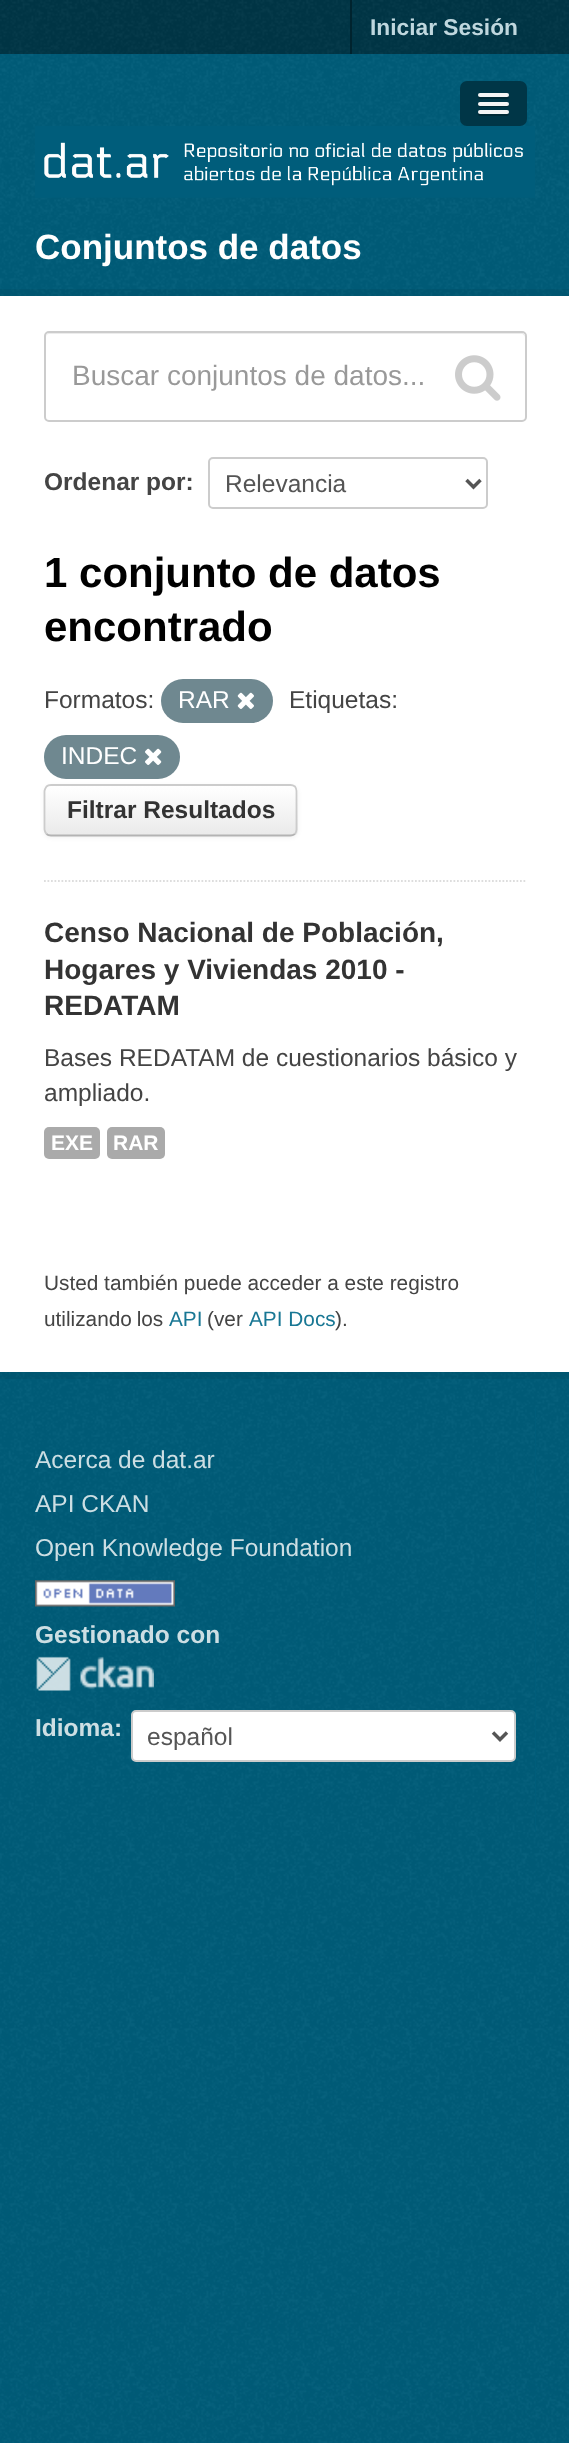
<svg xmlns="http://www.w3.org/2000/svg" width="569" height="2443">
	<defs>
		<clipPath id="clip1"><rect x="44" y="784" width="254" height="53" rx="7" /></clipPath>
		<linearGradient id="g1" gradientUnits="userSpaceOnUse" x1="171" y1="786" x2="171" y2="835"><stop offset="0" stop-color="#FFFFFF" /><stop offset="1" stop-color="#EAEAEA" /></linearGradient>
	</defs>
	<rect width="100%" height="100%" fill="#005D7A" />
	<image x="0" y="215" width="569" height="2228" href="assets/img1.png" />
	<rect x="0" y="0" width="569" height="54" fill="#003647" />
	<image x="0" y="0" width="569" height="54" href="assets/img2.png" />
	<rect x="350" y="0" width="2" height="54" fill="#00232E" />
	<text x="370" y="35" font-family="Liberation Sans" font-size="22.75" font-weight="700" fill="#BFD7DE">Iniciar Sesión</text>
	<image x="0" y="54" width="569" height="161" href="assets/img3.png" />
	<rect x="460" y="81" width="67" height="45" rx="7" fill="#003647" />
	<path d="M478.5 96L478 97.5C478.5 100 483.5 99 484.5 99H502.5C503.5 99 508.5 100 509 97.5L508.5 96C507.5 96.5 479.5 96.5 478.5 96Z" fill="#002935" />
	<rect x="478" y="93" width="31" height="4" rx="2" fill="#F5F5F5" />
	<path d="M478 104.5C477 108 483.5 107 484.5 107H502.5C503.5 107 510 108 509 104.5L507.5 105H479.5Z" fill="#002935" />
	<rect x="478" y="102" width="31" height="4" rx="2" fill="#F5F5F5" />
	<path d="M478 113C476.5 117 483.5 116 484.5 116H502.5C503.5 116 510.5 117 509 113L507.5 113.5H479.5Z" fill="#002935" />
	<rect x="478" y="110" width="31" height="4" rx="2" fill="#F5F5F5" />
	<image x="35" y="126" width="500" height="72" href="assets/img4.png" />
	<text x="35" y="259" font-family="Liberation Sans" font-size="35" font-weight="700" fill="#FFFFFF">Conjuntos de datos</text>
	<rect x="-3.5" y="292.5" width="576" height="1083" fill="none" stroke="#000000" stroke-opacity="0.05" stroke-width="7" />
	<rect x="0" y="296" width="569" height="1076" fill="#FFFFFF" />
	<path d="M44 881H527" fill="none" stroke="#DDDDDD" stroke-width="1.8" stroke-dasharray="1.75 1.75" />
	<path d="M49 334H522C523 334 525 336 525 338C525 335 524 333 521 333H50C47 333 46 335 46 338C46 336 47 334 49 334Z" fill="#ECECEC" />
	<rect x="45" y="332" width="481" height="89" rx="4" fill="none" stroke="#CCCCCC" stroke-width="2" />
	<text x="72" y="385" font-family="Liberation Sans" font-size="28" fill="#999999">Buscar conjuntos de datos...</text>
	<image x="455" y="355" width="46" height="46" href="assets/img5.png" />
	<text x="44" y="490" font-family="Liberation Sans" font-size="24.5" font-weight="700" fill="#444444">Ordenar por:</text>
	<rect x="209" y="458" width="278" height="50" rx="4" fill="none" stroke="#CCCCCC" stroke-width="2" />
	<path d="M466.5 480L473.5 487L480.5 480" fill="none" stroke="#555555" stroke-width="3.5" />
	<text x="225" y="492" font-family="Liberation Sans" font-size="24.5" fill="#555555">Relevancia</text>
	<g font-family="Liberation Sans" font-size="42" font-weight="700" fill="#000000">
		<text x="44" y="587">1 conjunto de datos</text>
		<text x="44" y="641">encontrado</text>
	</g>
	<text x="44" y="708" font-family="Liberation Sans" font-size="24.5" fill="#444444">Formatos:</text>
	<rect x="161" y="679" width="112" height="44" rx="22" fill="#6F8890" />
	<text x="178" y="708" font-family="Liberation Sans" font-size="24.5" fill="#FFFFFF">RAR</text>
	<image x="237" y="692" width="17" height="17" href="assets/img6.png" />
	<text x="289" y="708" font-family="Liberation Sans" font-size="24.5" fill="#444444">Etiquetas:</text>
	<rect x="44" y="735" width="136" height="44" rx="22" fill="#6F8890" />
	<text x="61" y="764" font-family="Liberation Sans" font-size="24.5" fill="#FFFFFF">INDEC</text>
	<image x="145" y="748" width="17" height="17" href="assets/img7.png" />
	<rect x="44" y="786" width="254" height="52" rx="7" fill="#000000" fill-opacity="0.05" filter="blur(2px)" />
	<rect x="44" y="784" width="254" height="53" rx="7" fill="#F7F7F7" />
	<g clip-path="url(#clip1)">
		<rect x="44" y="786" width="254" height="49" fill="url(#g1)" />
	</g>
	<path d="M295 834C293.5 835 292 835.5 290.5 835.5H51C49 835.5 47.5 835 46.5 834" fill="none" stroke="#B3B3B3" stroke-width="1.8" />
	<path d="M46.5 834C45.5 832.5 44.5 831 44.5 829.5V791C44.5 789.5 45.5 788 46.5 786.5C47.5 785.5 49 785 51 785H290.5C292 785 293.5 785.5 295 786.5C296 788 296.5 789.5 296.5 791V829.5C296.5 831 296 832.5 295 834" fill="none" stroke="#CCCCCC" stroke-width="1.8" />
	<text x="67" y="818" font-family="Liberation Sans" font-size="24.5" font-weight="700" fill="#333333">Filtrar Resultados</text>
	<g font-family="Liberation Sans" font-size="28" font-weight="700" fill="#333333">
		<text x="44" y="942">Censo Nacional de Población,</text>
		<text x="44" y="979">Hogares y Viviendas 2010 -</text>
		<text x="44" y="1015">REDATAM</text>
	</g>
	<g font-family="Liberation Sans" font-size="24.5" fill="#444444">
		<text x="44" y="1066">Bases REDATAM de cuestionarios básico y</text>
		<text x="44" y="1101">ampliado.</text>
	</g>
	<rect x="44" y="1127" width="56" height="32" rx="5" fill="#AAAAAA" />
	<text x="51" y="1150" font-family="Liberation Sans" font-size="21" font-weight="700" fill="#FFFFFF">EXE</text>
	<rect x="107" y="1127" width="58" height="32" rx="5" fill="#AAAAAA" />
	<text x="113" y="1150" font-family="Liberation Sans" font-size="21" font-weight="700" fill="#FFFFFF">RAR</text>
	<g font-family="Liberation Sans" font-size="20.8" fill="#444444">
		<text x="44" y="1290">Usted también puede acceder a este registro</text>
		<text x="44" y="1326" word-spacing="-1">utilizando los</text>
	</g>
	<text x="169" y="1326" font-family="Liberation Sans" font-size="20.8" fill="#187794">API</text>
	<text x="207" y="1326" font-family="Liberation Sans" font-size="20.8" fill="#444444">(ver</text>
	<text x="249" y="1326" font-family="Liberation Sans" font-size="20.8" fill="#187794">API Docs</text>
	<text x="335" y="1326" font-family="Liberation Sans" font-size="20.8" fill="#444444">).</text>
	<rect x="35" y="1407" width="501" height="425" fill="#005D7A" />
	<image x="35" y="1407" width="500" height="425" href="assets/img8.png" />
	<g font-family="Liberation Sans" font-size="24.5" fill="#CCDEE3">
		<text x="35" y="1468">Acerca de dat.ar</text>
		<text x="35" y="1512">API CKAN</text>
		<text x="35" y="1556">Open Knowledge Foundation</text>
	</g>
	<image x="35" y="1580" width="140" height="27" href="assets/img9.png" />
	<text x="35" y="1643" font-family="Liberation Sans" font-size="24.5" font-weight="700" fill="#CCDEE3">Gestionado con</text>
	<image x="36" y="1656" width="118" height="35" href="assets/img10.png" />
	<text x="35" y="1736" font-family="Liberation Sans" font-size="24.5" font-weight="700" fill="#CCDEE3">Idioma:</text>
	<rect x="132" y="1711" width="383" height="50" rx="4" fill="#FFFFFF" stroke="#CCCCCC" stroke-width="2" />
	<path d="M493 1732.5L500 1739.5L507 1732.5" fill="none" stroke="#555555" stroke-width="3.5" />
	<text x="147" y="1745" font-family="Liberation Sans" font-size="24.5" fill="#555555">español</text>
</svg>
